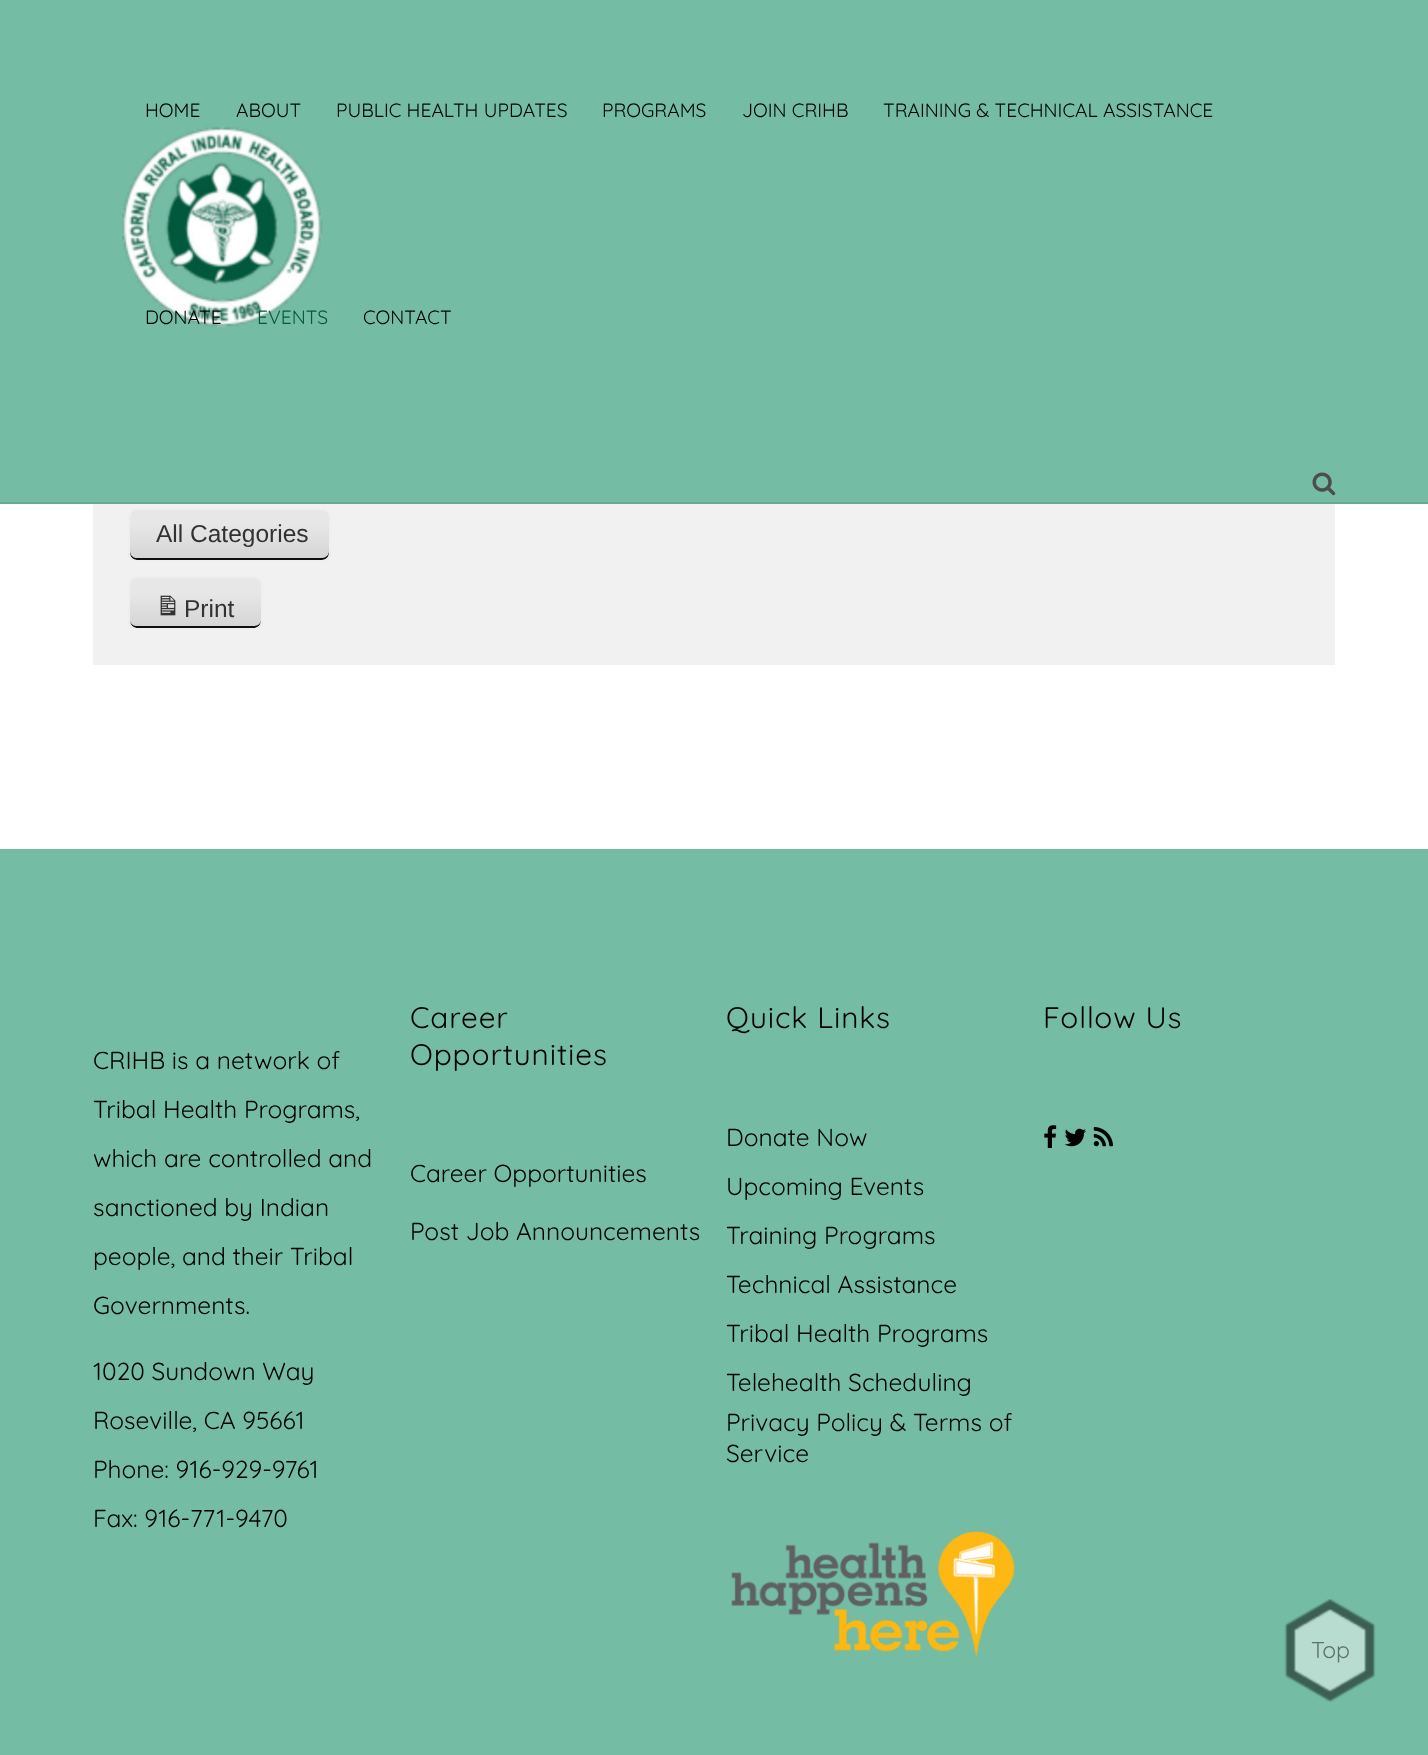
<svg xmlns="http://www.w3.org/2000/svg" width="1428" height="1755">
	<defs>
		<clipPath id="clip1"><rect x="128" y="508" width="203" height="54" rx="9" /></clipPath>
		<linearGradient id="g1" gradientUnits="userSpaceOnUse" x1="229" y1="560" x2="229" y2="509"><stop offset="0" stop-color="#D4D4D4" /><stop offset="0.7" stop-color="#E7E7E7" /></linearGradient>
		<clipPath id="clip2"><rect x="128" y="576" width="135" height="54" rx="9" /></clipPath>
		<linearGradient id="g2" gradientUnits="userSpaceOnUse" x1="195" y1="628" x2="195" y2="578"><stop offset="0" stop-color="#D4D4D4" /><stop offset="0.7" stop-color="#E7E7E7" /></linearGradient>
	</defs>
	<rect width="100%" height="100%" fill="#FFFFFF" />
	<rect x="0" y="0" width="1428" height="502" fill="#74BCA4" />
	<rect x="0" y="502" width="1428" height="2" fill="#68A994" />
	<g font-family="Quicksand" font-size="19.25" fill="#000000">
		<text x="145" y="117">HOME</text>
		<text x="236" y="117">ABOUT</text>
		<text x="336" y="117">PUBLIC HEALTH UPDATES</text>
		<text x="602" y="117">PROGRAMS</text>
		<text x="742" y="117">JOIN CRIHB</text>
		<text x="883" y="117">TRAINING &amp; TECHNICAL ASSISTANCE</text>
	</g>
	<image x="122" y="126" width="201" height="202" href="assets/img2.png" />
	<text x="145" y="324" font-family="Quicksand" font-size="19.25" fill="#000000">DONATE</text>
	<text x="257" y="324" font-family="Quicksand" font-size="19.25" fill="#00583D">EVENTS</text>
	<text x="363" y="324" font-family="Quicksand" font-size="19.25" fill="#000000">CONTACT</text>
	<image x="1312" y="472" width="24" height="24" href="assets/img1.png" />
	<rect x="93" y="504" width="1242" height="161" fill="#F1F1F1" />
	<g clip-path="url(#clip1)">
		<rect x="128" y="509" width="203" height="51" fill="url(#g1)" />
	</g>
	<path d="M130 551V553C130 557 133 560 137 560H322C326 560 329 557 329 553V551C329 555 326 558 322 558H136C133 558 130 555 130 551Z" fill="#0F0F0F" />
	<rect x="129" y="509" width="201" height="52" rx="8" fill="none" stroke="#EFEFEF" stroke-width="2" />
	<text x="156" y="542" font-family="Liberation Sans" font-size="24.5" fill="#313233">All Categories</text>
	<g clip-path="url(#clip2)">
		<rect x="128" y="578" width="135" height="50" fill="url(#g2)" />
	</g>
	<path d="M130 620C130 633 150 628 156 628H234C241 628 261 633 261 620C261 623 258 626 254 626H136C133 626 130 623 130 620Z" fill="#0F0F0F" />
	<rect x="129" y="577" width="133" height="52" rx="8" fill="none" stroke="#EFEFEF" stroke-width="2" />
	<image x="160" y="595" width="16" height="21" href="assets/img3.png" />
	<text x="184" y="617" font-family="Liberation Sans" font-size="24.5" fill="#313233">Print</text>
	<rect x="0" y="849" width="1428" height="906" fill="#74BCA4" />
	<g font-family="Quicksand" font-size="29.75" letter-spacing="0.9" fill="#000000">
		<text x="410" y="1028">Career</text>
		<text x="410" y="1065">Opportunities</text>
	</g>
	<g font-family="Quicksand" font-size="24.5" fill="#000000">
		<text x="410" y="1182">Career Opportunities</text>
		<text x="410" y="1240">Post Job Announcements</text>
	</g>
	<text x="726" y="1028" font-family="Quicksand" font-size="29.75" letter-spacing="0.9" fill="#000000">Quick Links</text>
	<g font-family="Quicksand" font-size="24.5" fill="#000000">
		<text x="726" y="1146">Donate Now</text>
		<text x="726" y="1195">Upcoming Events</text>
		<text x="726" y="1244">Training Programs</text>
		<text x="726" y="1293">Technical Assistance</text>
		<text x="726" y="1342">Tribal Health Programs</text>
		<text x="726" y="1391">Telehealth Scheduling</text>
		<text x="726" y="1431">Privacy Policy &amp; Terms of</text>
		<text x="726" y="1462">Service</text>
	</g>
	<image x="731" y="1530" width="284" height="128" href="assets/img4.png" />
	<text x="1043" y="1028" font-family="Quicksand" font-size="29.75" letter-spacing="0.9" fill="#000000">Follow Us</text>
	<image x="1044" y="1125" width="13" height="23" href="assets/img5.png" />
	<image x="1064" y="1128" width="22" height="19" href="assets/img6.png" />
	<image x="1093" y="1127" width="20" height="20" href="assets/img7.png" />
	<g font-family="Quicksand" font-size="24.5" fill="#000000">
		<text x="93" y="1069">CRIHB is a network of</text>
		<text x="93" y="1118">Tribal Health Programs,</text>
		<text x="93" y="1167">which are controlled and</text>
		<text x="93" y="1216">sanctioned by Indian</text>
		<text x="93" y="1265">people, and their Tribal</text>
		<text x="93" y="1314">Governments.</text>
		<text x="93" y="1380">1020 Sundown Way</text>
		<text x="93" y="1429">Roseville, CA 95661</text>
		<text x="93" y="1478">Phone: 916-929-9761</text>
		<text x="93" y="1527">Fax: 916-771-9470</text>
	</g>
	<image x="1284" y="1599" width="92" height="103" href="assets/img8.png" />
	<text x="1311" y="1658" font-family="Quicksand" font-size="23" fill="#5E716B">Top</text>
</svg>
